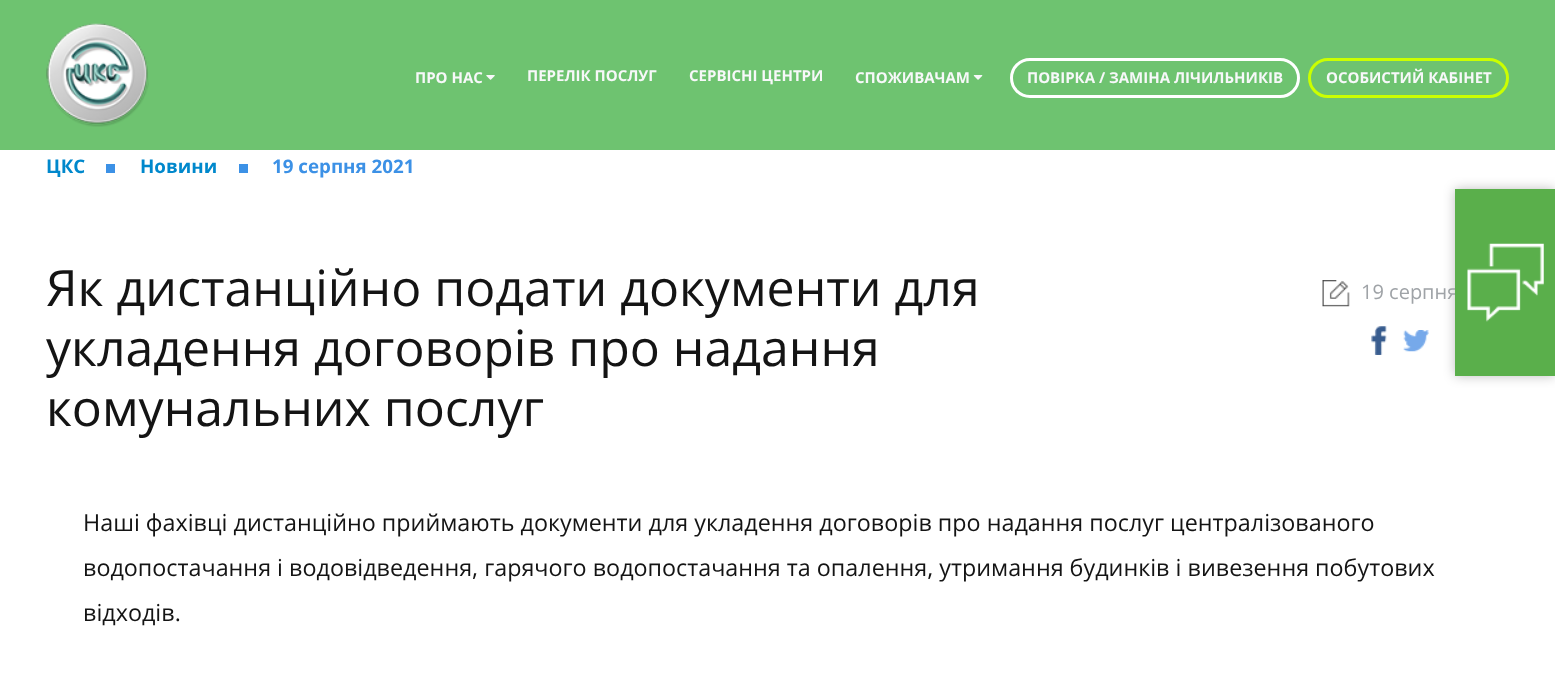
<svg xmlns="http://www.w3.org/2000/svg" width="1555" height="688">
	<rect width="100%" height="100%" fill="#FFFFFF" />
	<rect x="0" y="0" width="1555" height="150" fill="#6EC370" />
	<image x="46" y="23" width="103" height="104" href="assets/img1.png" />
	<text x="415" y="83" font-family="Open Sans" font-size="15" font-weight="700" fill="#F7F8F9">ПРО НАС</text>
	<image x="486" y="75" width="9" height="5" href="assets/img2.png" />
	<g font-family="Open Sans" font-size="15" font-weight="700" fill="#F7F8F9">
		<text x="527" y="81">ПЕРЕЛІК ПОСЛУГ</text>
		<text x="689" y="81">СЕРВІСНІ ЦЕНТРИ</text>
		<text x="855" y="83">СПОЖИВАЧАМ</text>
	</g>
	<image x="973" y="75" width="10" height="5" href="assets/img3.png" />
	<rect x="1011.5" y="59.5" width="287" height="37" rx="18.5" fill="none" stroke="#FFFFFF" stroke-width="3" />
	<text x="1027" y="83" font-family="Open Sans" font-size="15" font-weight="700" fill="#F7F8F9">ПОВІРКА / ЗАМІНА ЛІЧИЛЬНИКІВ</text>
	<rect x="1309.5" y="59.5" width="198" height="37" rx="18.5" fill="none" stroke="#CBFF00" stroke-width="3" />
	<text x="1326" y="83" font-family="Open Sans" font-size="15" font-weight="700" fill="#F7F8F9">ОСОБИСТИЙ КАБІНЕТ</text>
	<text x="46" y="173" font-family="Open Sans" font-size="18.75" font-weight="700" fill="#0088CC">ЦКС</text>
	<rect x="106" y="164" width="9" height="9" fill="#3C91E6" />
	<text x="140" y="173" font-family="Open Sans" font-size="18.75" font-weight="700" fill="#0088CC">Новини</text>
	<rect x="239" y="164" width="9" height="9" fill="#3C91E6" />
	<text x="272" y="173" font-family="Open Sans" font-size="18.75" font-weight="700" fill="#3C91E6">19 серпня 2021</text>
	<rect x="1455" y="189" width="100" height="187" fill="#000000" fill-opacity="0.25" filter="blur(6px)" />
	<text x="1361" y="299" font-family="Open Sans" font-size="20" fill="#9FA3A7">19 серпня</text>
	<rect x="1455" y="189" width="100" height="187" fill="#5AAF4B" />
	<image x="1467" y="243" width="77" height="79" href="assets/img4.png" />
	<g font-family="Open Sans" font-size="50" fill="#141414">
		<text x="46" y="306">Як дистанційно подати документи для</text>
		<text x="46" y="366">укладення договорів про надання</text>
		<text x="46" y="426">комунальних послуг</text>
	</g>
	<image x="1322" y="280" width="28" height="27" href="assets/img5.png" />
	<image x="1371" y="326" width="16" height="29" href="assets/img6.png" />
	<image x="1403" y="330" width="26" height="22" href="assets/img7.png" />
	<g font-family="Open Sans" font-size="23.33" fill="#141414">
		<text x="83" y="531">Наші фахівці дистанційно приймають документи для укладення договорів про надання послуг централізованого</text>
		<text x="83" y="576">водопостачання і водовідведення, гарячого водопостачання та опалення, утримання будинків і вивезення побутових</text>
		<text x="83" y="621">відходів.</text>
	</g>
</svg>
